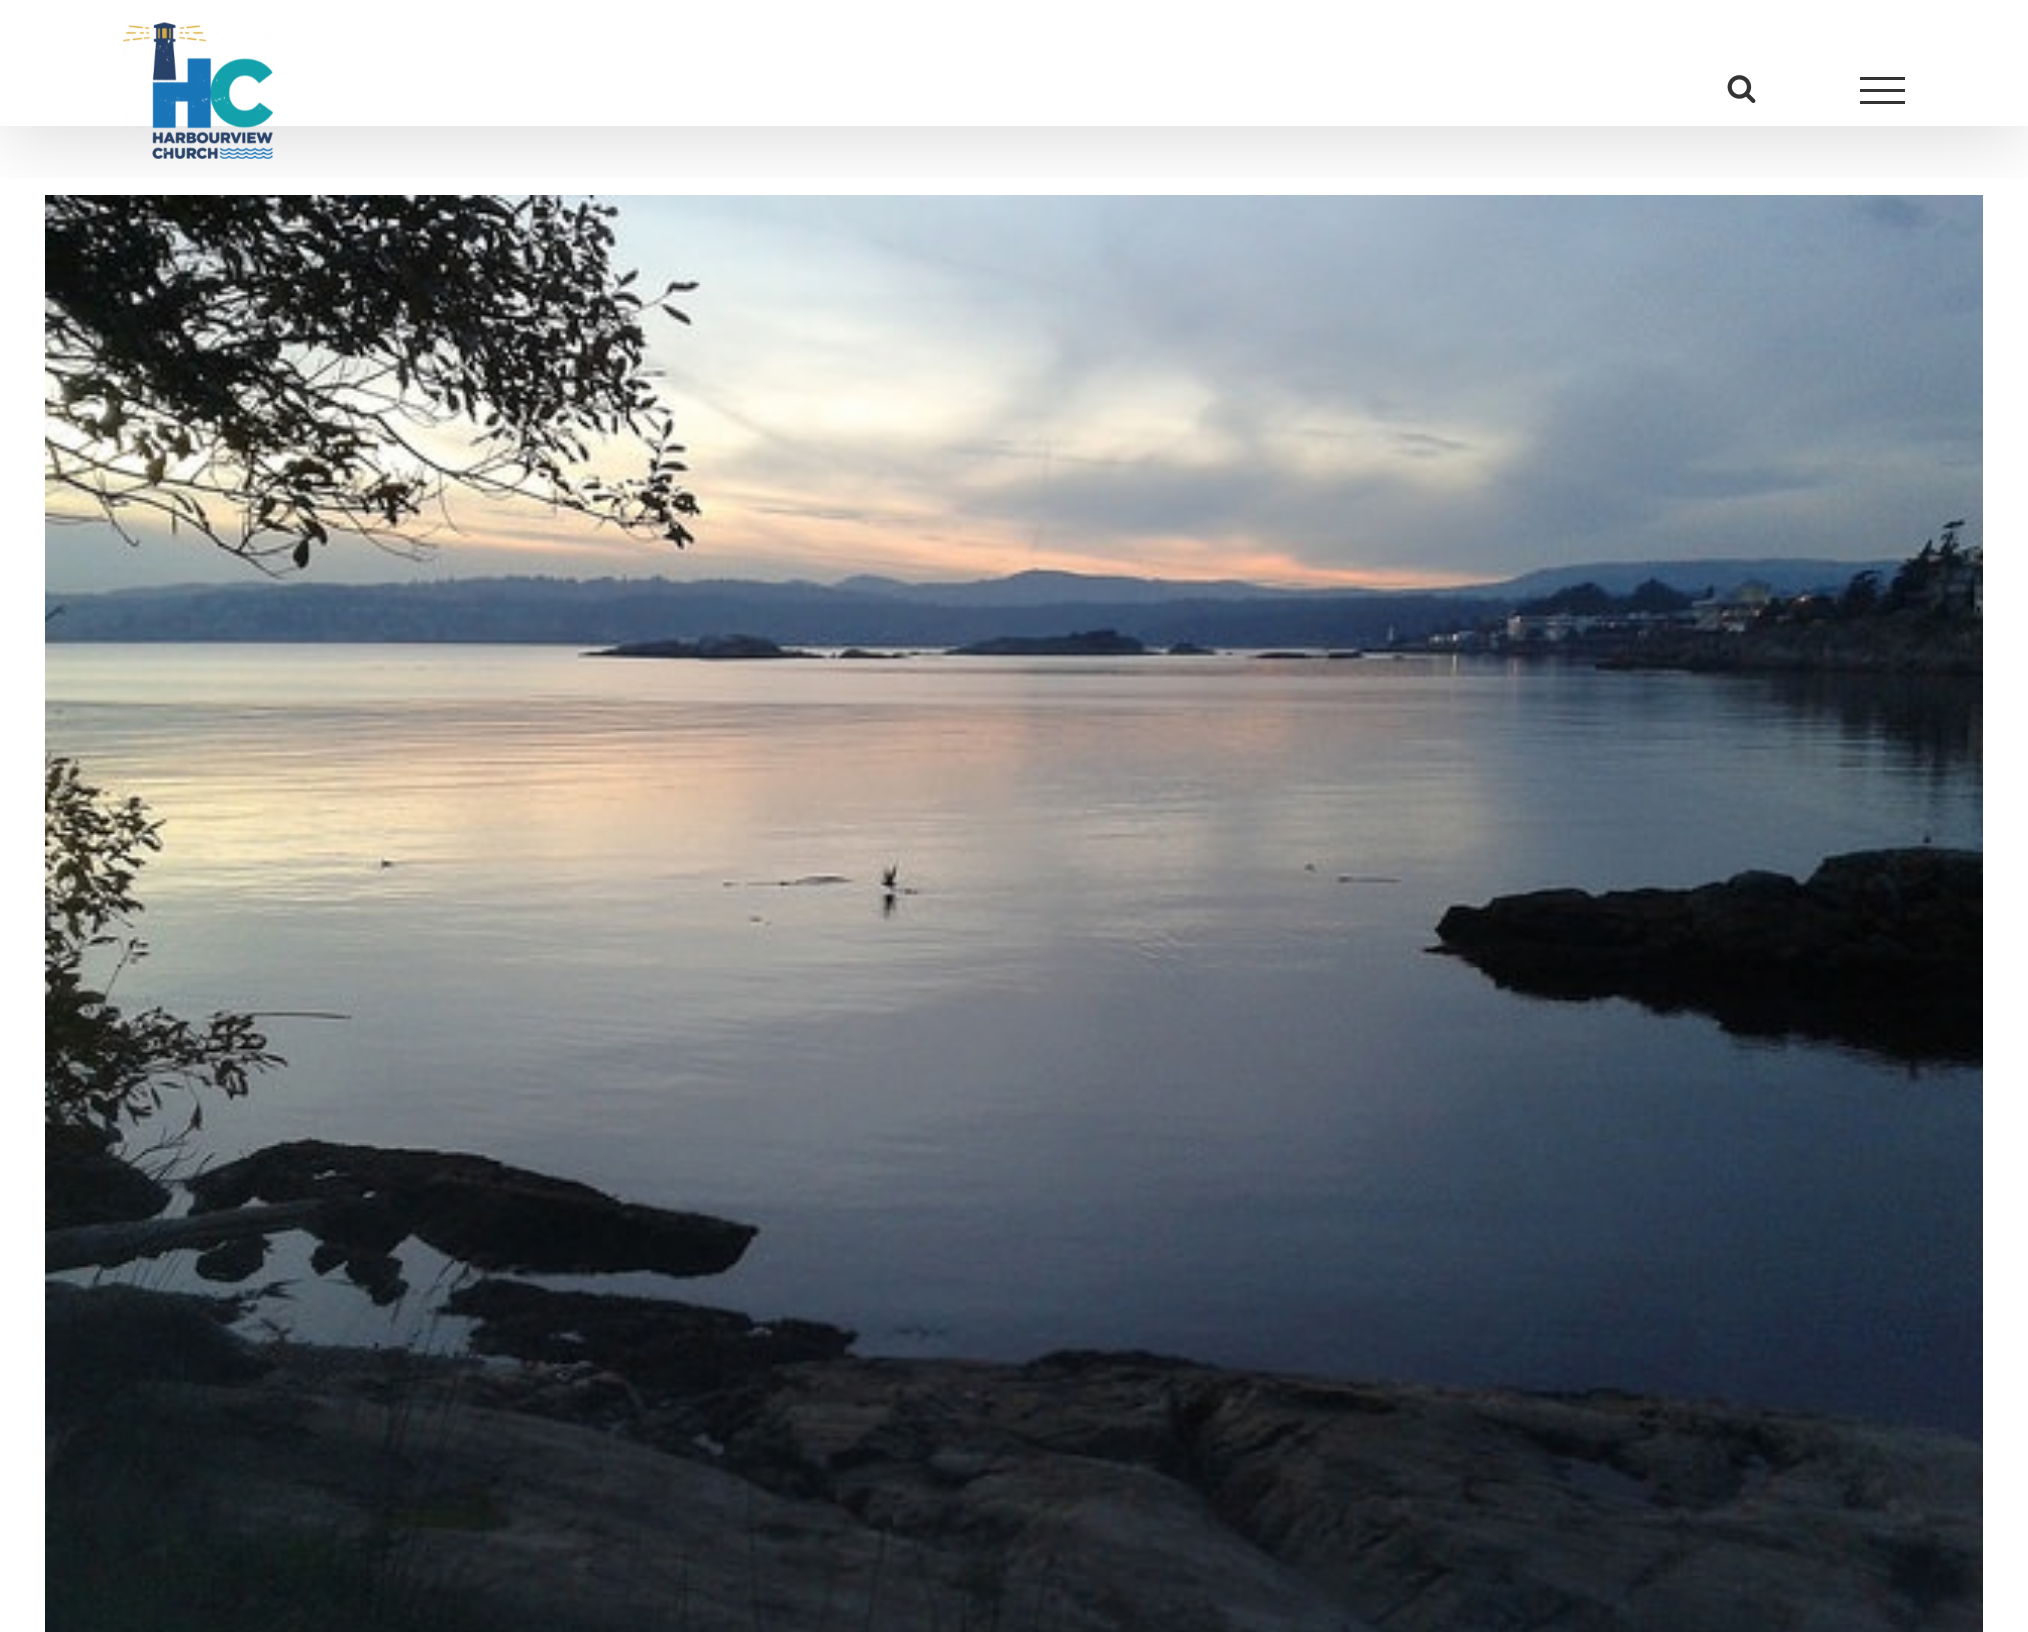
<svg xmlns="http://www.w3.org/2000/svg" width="2028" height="1632">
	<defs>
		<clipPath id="clip1"><rect x="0" y="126" width="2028" height="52" /></clipPath>
	</defs>
	<rect width="100%" height="100%" fill="#FFFFFF" />
	<image x="45" y="195" width="1938" height="1437" href="assets/img3.png" />
	<g clip-path="url(#clip1)">
		<rect x="3" y="18" width="2022" height="120" fill="#000000" fill-opacity="0.14" filter="blur(37.5px)" />
	</g>
	<image x="123" y="22" width="150" height="137" href="assets/img1.png" />
	<image x="1727" y="75" width="29" height="28" href="assets/img2.png" />
	<rect x="1860" y="77" width="45" height="3" fill="#333333" />
	<rect x="1860" y="89" width="45" height="3" fill="#333333" />
	<rect x="1860" y="101" width="45" height="3" fill="#333333" />
</svg>
